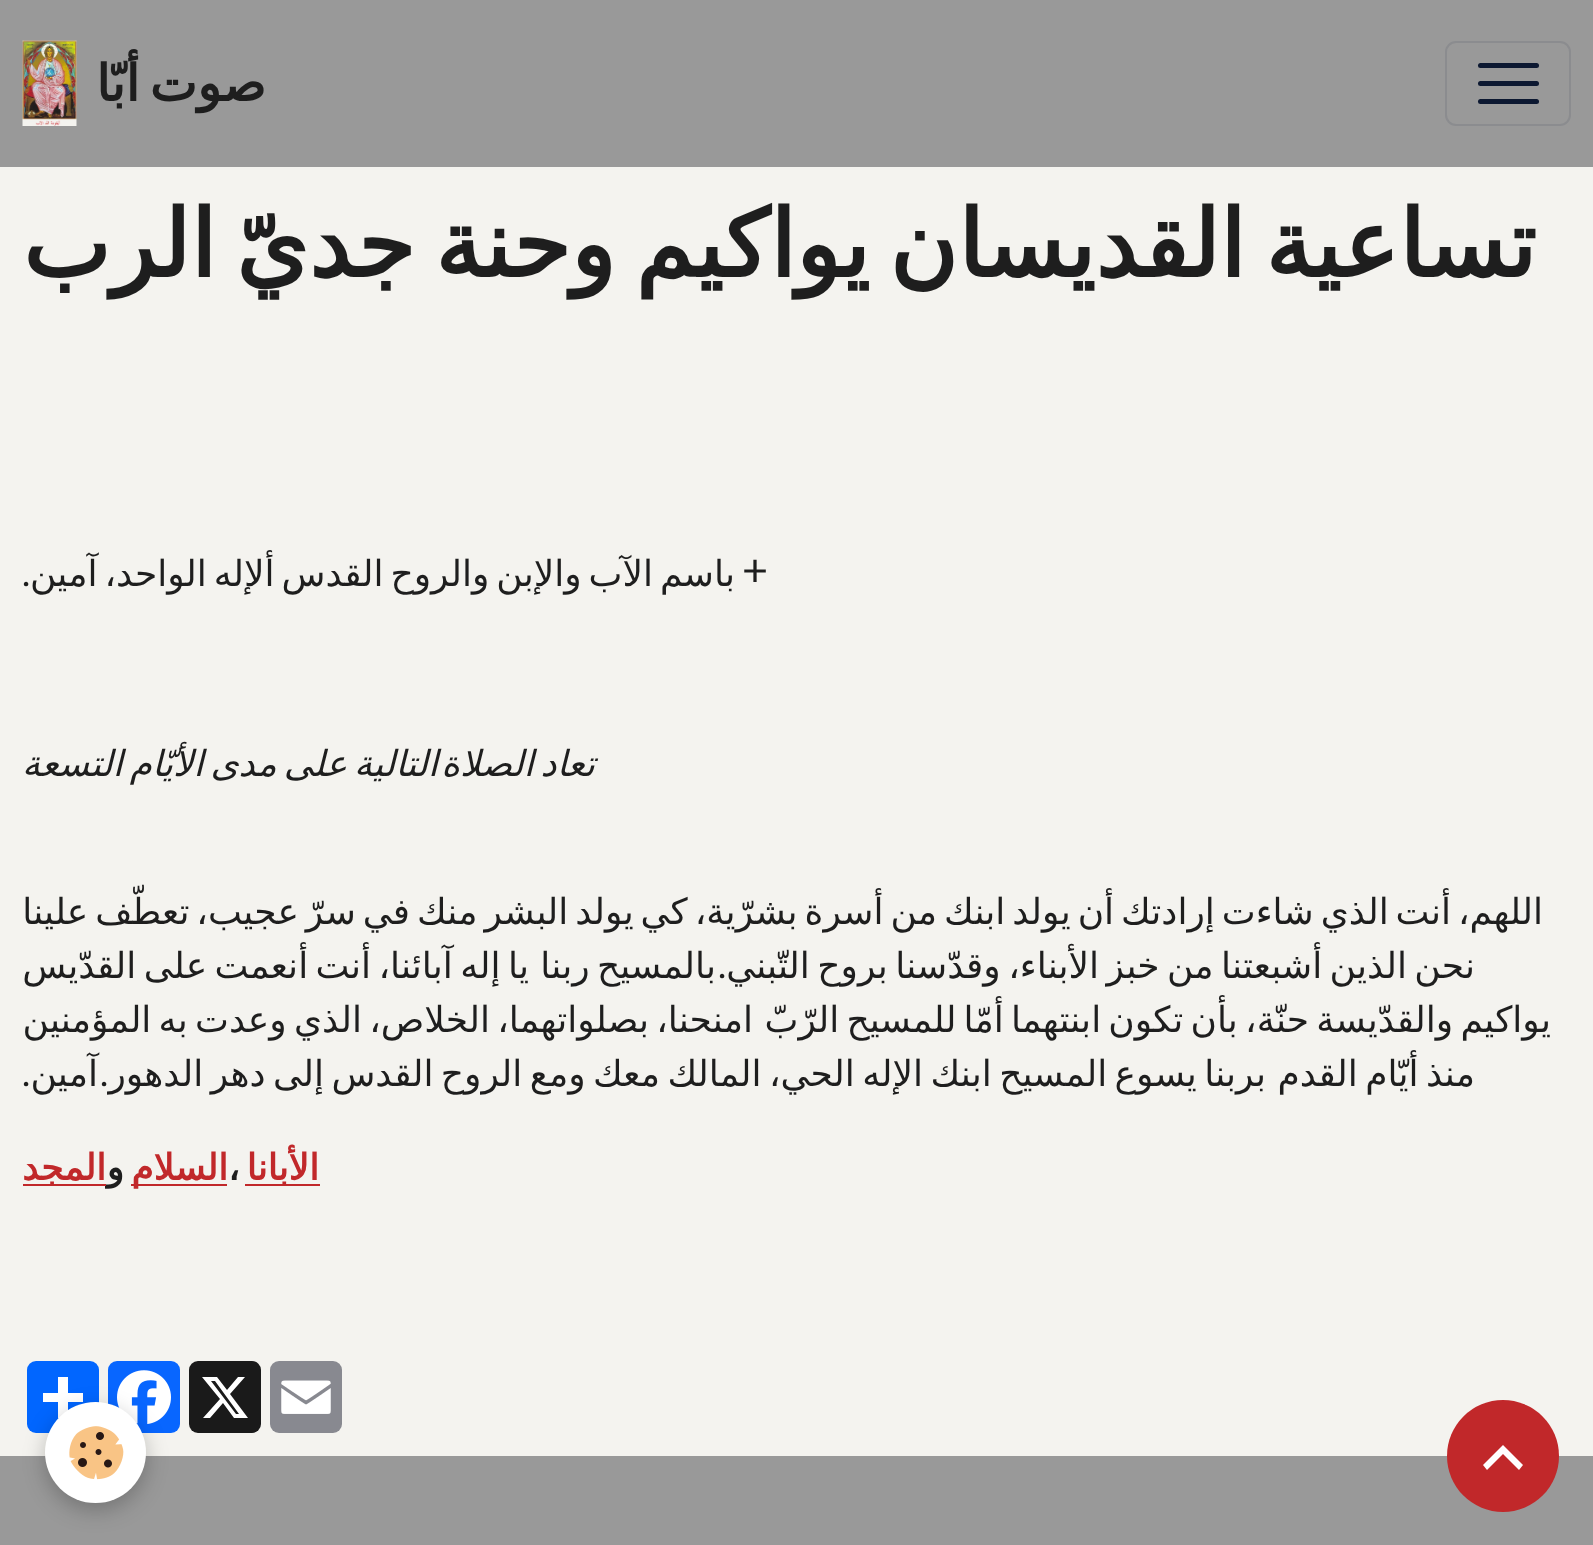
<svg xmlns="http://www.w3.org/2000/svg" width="1593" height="1545">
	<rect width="100%" height="100%" fill="#999999" />
	<rect x="1446" y="42" width="124" height="83" rx="10" fill="none" stroke="#8B8C8F" stroke-width="2" />
	<rect x="1478" y="63" width="61" height="5" rx="2.5" fill="#0C1831" />
	<rect x="1478" y="81" width="61" height="5" rx="2.5" fill="#0C1831" />
	<rect x="1478" y="99" width="61" height="5" rx="2.5" fill="#0C1831" />
	<text x="266" y="101" word-spacing="-6" font-family="DejaVu Sans" font-size="50.5" font-weight="700" direction="rtl" fill="#1E1E1E">صوت أبّا</text>
	<image x="22" y="40" width="55" height="86" href="assets/img1.png" />
	<rect x="0" y="167" width="1593" height="1289" fill="#F4F3EF" />
	<text x="1536" y="277" word-spacing="-10" font-family="DejaVu Sans" font-size="93.2" font-weight="700" direction="rtl" fill="#1E1E1E">تساعية القديسان يواكيم وحنة جديّ الرب</text>
	<text x="742" y="586" font-family="Lato" font-size="45" fill="#1E1E1E">+</text>
	<text x="735" y="586" word-spacing="-4.5" font-family="DejaVu Sans" font-size="36" direction="rtl" fill="#1E1E1E">باسم الآب والإبن والروح القدس ألإله الواحد، آمين</text>
	<text x="30" y="586" font-family="Lato" font-size="36" direction="rtl" fill="#1E1E1E">.</text>
	<g font-family="DejaVu Sans" font-size="36" font-style="italic" direction="rtl" fill="#1E1E1E">
		<text x="438" y="776" word-spacing="-4.5">التالية على مدى الأيّام التسعة</text>
		<text x="595" y="776" word-spacing="-4.5">تعاد الصلاة</text>
	</g>
	<g font-family="DejaVu Sans" font-size="36" direction="rtl" fill="#1E1E1E">
		<text x="1543" y="924" word-spacing="-4.5">اللهم، أنت الذي شاءت إرادتك أن يولد ابنك من أسرة بشرّية، كي يولد البشر منك في سرّ عجيب، تعطّف علينا</text>
		<text x="1475" y="978" word-spacing="-4">نحن الذين أشبعتنا من خبز الأبناء، وقدّسنا بروح التّبني</text>
	</g>
	<text x="726" y="978" font-family="Lato" font-size="36" direction="rtl" fill="#1E1E1E">.</text>
	<g font-family="DejaVu Sans" font-size="36" direction="rtl" fill="#1E1E1E">
		<text x="529" y="978" word-spacing="-4">يا إله آبائنا، أنت أنعمت على القدّيس</text>
		<text x="716" y="978" word-spacing="-4">بالمسيح ربنا</text>
		<text x="753" y="1032" word-spacing="-4.25">امنحنا، بصلواتهما، الخلاص، الذي وعدت به المؤمنين</text>
		<text x="1551" y="1032" word-spacing="-4.25">يواكيم والقدّيسة حنّة، بأن تكون ابنتهما أمّا للمسيح الرّبّ</text>
	</g>
	<text x="108" y="1086" font-family="Lato" font-size="36" direction="rtl" fill="#1E1E1E">.</text>
	<g font-family="DejaVu Sans" font-size="36" direction="rtl" fill="#1E1E1E">
		<text x="1266" y="1086" word-spacing="-4">بربنا يسوع المسيح ابنك الإله الحي، المالك معك ومع الروح القدس إلى دهر الدهور</text>
		<text x="1475" y="1086" word-spacing="-4">منذ أيّام القدم</text>
		<text x="98" y="1086">آمين</text>
	</g>
	<text x="30" y="1086" font-family="Lato" font-size="36" direction="rtl" fill="#1E1E1E">.</text>
	<rect x="245" y="1184" width="75" height="2" fill="#C1282A" />
	<text x="319" y="1180" font-family="DejaVu Sans" font-size="36" font-weight="700" direction="rtl" fill="#C1282A">الأبانا</text>
	<text x="228" y="1180" font-family="DejaVu Sans" font-size="36" font-weight="700" fill="#1E1E1E">،</text>
	<rect x="131" y="1184" width="96" height="2" fill="#C1282A" />
	<text x="228" y="1180" font-family="DejaVu Sans" font-size="36" font-weight="700" direction="rtl" fill="#C1282A">السلام</text>
	<text x="124" y="1180" font-family="DejaVu Sans" font-size="36" font-weight="700" direction="rtl" fill="#1E1E1E">و</text>
	<rect x="23" y="1184" width="83" height="2" fill="#C1282A" />
	<text x="106" y="1180" font-family="DejaVu Sans" font-size="36" font-weight="700" direction="rtl" fill="#C1282A">المجد</text>
	<rect x="270" y="1361" width="72" height="72" rx="9" fill="#888990" />
	<image x="281" y="1380" width="50" height="34" href="assets/img2.png" />
	<rect x="189" y="1361" width="72" height="72" rx="9" fill="#1A1A1A" />
	<path d="M238 1377H245L230 1394L248 1418H234L223 1403L210 1418H203L220 1399L202 1377H217L227 1390ZM236 1414H239L215 1381H211Z" fill="#FFFFFF" />
	<rect x="108" y="1361" width="72" height="72" rx="9" fill="#0866FF" />
	<image x="117" y="1370" width="54" height="54" href="assets/img3.png" />
	<rect x="27" y="1361" width="72" height="72" rx="9" fill="#0166FF" />
	<rect x="58" y="1377" width="10" height="41" fill="#FFFFFF" />
	<rect x="43" y="1393" width="40" height="9" fill="#FFFFFF" />
	<circle cx="1503" cy="1456" r="56" fill="#C1282A" />
	<path d="M1503 1445L1523 1465L1519 1470L1503 1454L1487 1470L1483 1465Z" fill="#FFFFFF" />
	<rect x="45" y="1409" width="101" height="101" rx="50.5" fill="#000000" fill-opacity="0.24" filter="blur(11px)" />
	<circle cx="95.5" cy="1452.5" r="50.5" fill="#FFFFFF" />
	<image x="69" y="1426" width="55" height="54" href="assets/img4.png" />
</svg>
